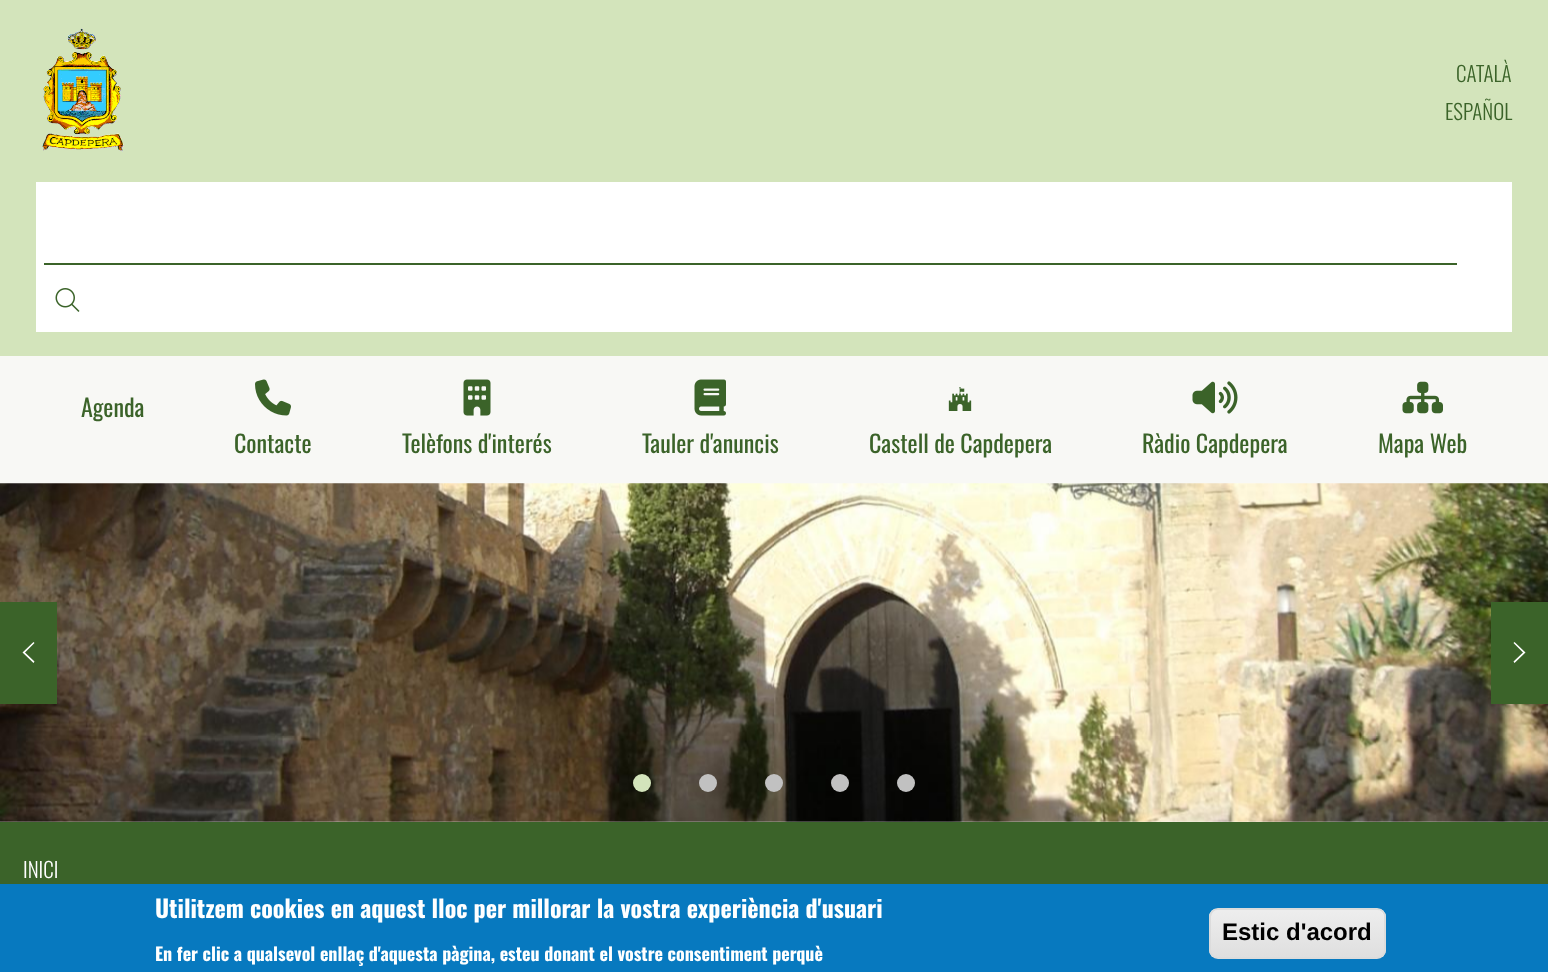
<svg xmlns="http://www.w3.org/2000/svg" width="1548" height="972">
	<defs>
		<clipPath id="clip1"><rect x="1209" y="908" width="177" height="51" rx="9" /></clipPath>
		<linearGradient id="g1" gradientUnits="userSpaceOnUse" x1="1298" y1="909" x2="1298" y2="957"><stop offset="0.05" stop-color="#EDEDED" /><stop offset="1" stop-color="#DFDFDF" /></linearGradient>
	</defs>
	<rect width="100%" height="100%" fill="#F8F8F5" />
	<rect x="0" y="0" width="1548" height="356" fill="#D3E4BB" />
	<image x="42" y="28" width="82" height="124" href="assets/img1.png" />
	<g font-family="Oswald" font-size="21" font-weight="300" fill="#3B6329">
		<text x="1456" y="82">CATALÀ</text>
		<text x="1445" y="120">ESPAÑOL</text>
	</g>
	<rect x="36" y="182" width="1476" height="150" fill="#FFFFFF" />
	<rect x="44" y="263" width="1413" height="2" fill="#3B6329" />
	<image x="55" y="288" width="25" height="24" href="assets/img2.png" />
	<text x="81" y="417" font-family="Oswald" font-size="24" fill="#3B6329">Agenda</text>
	<image x="255" y="379" width="36" height="37" href="assets/img3.png" />
	<text x="234" y="453" font-family="Oswald" font-size="24" fill="#3B6329">Contacte</text>
	<image x="463" y="379" width="28" height="37" href="assets/img4.png" />
	<text x="402" y="453" font-family="Oswald" font-size="24" fill="#3B6329">Telèfons d'interés</text>
	<image x="694" y="379" width="32" height="37" href="assets/img5.png" />
	<text x="642" y="453" font-family="Oswald" font-size="24" fill="#3B6329">Tauler d'anuncis</text>
	<image x="948" y="387" width="24" height="24" href="assets/img6.png" />
	<text x="869" y="453" font-family="Oswald" font-size="24" fill="#3B6329">Castell de Capdepera</text>
	<image x="1192" y="381" width="46" height="33" href="assets/img7.png" />
	<text x="1142" y="453" font-family="Oswald" font-size="24" fill="#3B6329">Ràdio Capdepera</text>
	<image x="1402" y="381" width="41" height="33" href="assets/img8.png" />
	<text x="1378" y="453" font-family="Oswald" font-size="24" fill="#3B6329">Mapa Web</text>
	<image x="0" y="483" width="1548" height="339" href="assets/img9.png" />
	<rect x="0" y="602" width="57" height="102" fill="#3B6329" />
	<path d="M25 652.5L34.5 661.5L33.5 663L22.5 652.5L33.5 642L34.5 643Z" fill="#FFFFFF" />
	<rect x="1491" y="602" width="57" height="102" fill="#3B6329" />
	<path d="M1523 652.5L1513.5 643L1514.5 642L1525.5 652.5L1514.5 663L1513.5 661.5Z" fill="#FFFFFF" />
	<circle cx="642" cy="783" r="9" fill="#D3E4BB" />
	<circle cx="708" cy="783" r="9" fill="#C1C1C1" />
	<circle cx="774" cy="783" r="9" fill="#C1C1C1" />
	<circle cx="840" cy="783" r="9" fill="#C1C1C1" />
	<circle cx="906" cy="783" r="9" fill="#C1C1C1" />
	<rect x="0" y="822" width="1548" height="62" fill="#3B6329" />
	<text x="23" y="878" font-family="Oswald" font-size="21" font-weight="300" fill="#FFFFFF">INICI</text>
	<rect x="0" y="884" width="1548" height="88" fill="#0779BF" />
	<text x="155" y="918" font-family="Oswald" font-size="24" font-weight="700" fill="#FFFFFF">Utilitzem cookies en aquest lloc per millorar la vostra experiència d'usuari</text>
	<text x="155" y="961" font-family="Oswald" font-size="18" font-weight="700" fill="#FFFFFF">En fer clic a qualsevol enllaç d'aquesta pàgina, esteu donant el vostre consentiment perquè</text>
	<g clip-path="url(#clip1)">
		<rect x="1209" y="909" width="177" height="48" fill="url(#g1)" />
	</g>
	<path d="M1218 910H1377C1381 910 1384 914 1384 918V951V954C1384 952 1385 951 1385 949V917C1385 913 1381 909 1377 909H1219C1216 909 1214 911 1212 913C1214 911 1216 910 1218 910Z" fill="#FFFFFF" />
	<rect x="1210" y="909" width="175" height="49" rx="8" fill="none" stroke="#DCDCDC" stroke-width="2" />
	<text x="1222" y="940" font-family="Liberation Sans" font-size="24" font-weight="700" fill="#000000">Estic d'acord</text>
</svg>
